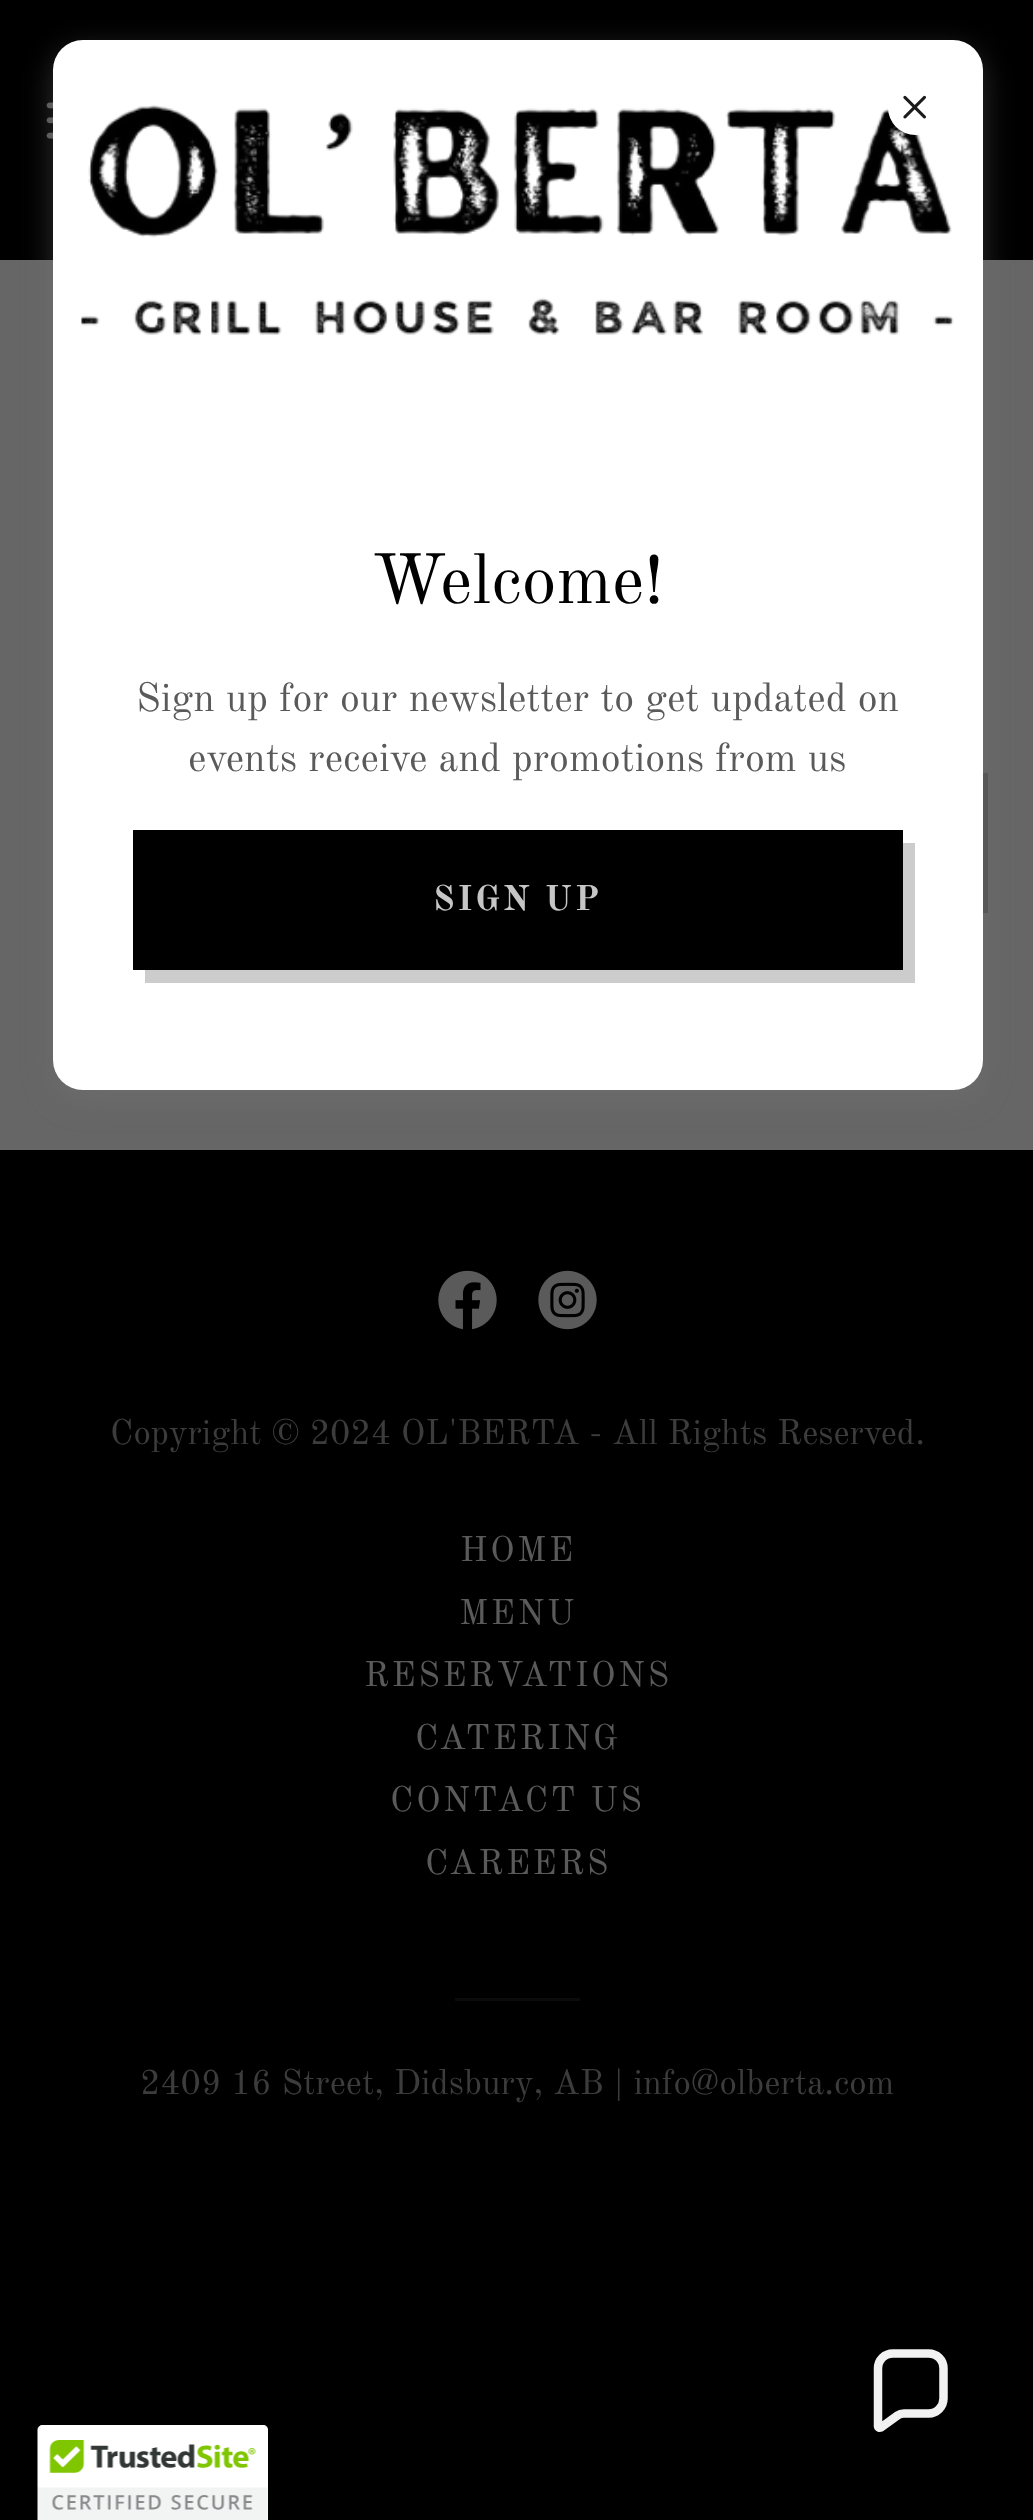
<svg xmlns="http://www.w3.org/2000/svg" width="1033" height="2520">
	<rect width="100%" height="100%" fill="#000000" />
	<image x="46" y="102" width="7" height="37" href="assets/img1.png" />
	<rect x="0" y="260" width="1033" height="890" fill="#666666" />
	<path d="M73 900V913H988V773H975V900Z" fill="#525252" />
	<rect x="53" y="50" width="930" height="1050" rx="30" fill="#757575" fill-opacity="0.4" filter="blur(15px)" />
	<rect x="53" y="40" width="930" height="1050" rx="30" fill="#FFFFFF" />
	<image x="80" y="105" width="874" height="230" href="assets/img3.png" />
	<circle cx="915.5" cy="107.5" r="27.5" fill="#FFFFFF" />
	<image x="903" y="95" width="23" height="24" href="assets/img2.png" />
	<text x="372" y="603" font-family="Old Standard TT" font-size="70" fill="#000000">Welcome!</text>
	<g font-family="Old Standard TT" font-size="40" fill="#5A5A5A">
		<text x="136" y="711">Sign up for our newsletter to get updated on</text>
		<text x="188" y="771">events receive and promotions from us</text>
	</g>
	<rect x="133" y="830" width="770" height="140" fill="#000000" />
	<path d="M145 970V983H915V843H902V970Z" fill="#000000" fill-opacity="0.2" />
	<text x="433" y="910" font-family="Old Standard TT" font-size="35" font-weight="700" letter-spacing="2.5" fill="#C6C6C6">SIGN UP</text>
	<image x="438" y="1270" width="59" height="60" href="assets/img4.png" />
	<image x="538" y="1270" width="59" height="60" href="assets/img5.png" />
	<text x="110" y="1444" font-family="Old Standard TT" font-size="35" fill="#3C3C3C">Copyright © 2024 OL'BERTA - All Rights Reserved.</text>
	<g font-family="Old Standard TT" font-size="35" letter-spacing="2.5" fill="#5A5A5A">
		<text x="460" y="1561">HOME</text>
		<text x="459" y="1624">MENU</text>
		<text x="364" y="1686">RESERVATIONS</text>
		<text x="415" y="1749">CATERING</text>
		<text x="390" y="1811">CONTACT US</text>
		<text x="425" y="1874">CAREERS</text>
	</g>
	<rect x="455" y="1998" width="125" height="3" fill="#0B0B0B" />
	<text x="140" y="2094" font-family="Old Standard TT" font-size="35" fill="#3C3C3C">2409 16 Street, Didsbury, AB | info@olberta.com</text>
	<path d="M928.5 2353.5H893C884.5 2353.5 878 2360 878 2368.5V2426C878 2427.5 879.5 2428 881 2427.5L897.5 2415.5C899.5 2414 901.5 2413.5 904 2413.5H928.5C937 2413.5 943.5 2406.5 943.5 2398.5V2368.5C943.5 2360 937 2353.5 928.5 2353.5Z" fill="none" stroke="#F2F2F2" stroke-width="8.5" />
	<path d="M43 2425H263C266 2425 268 2427 268 2430V2520H38V2430C38 2427 40 2425 43 2425Z" fill="#FFFFFF" />
	<image x="37" y="2425" width="231" height="95" href="assets/img6.png" />
</svg>
